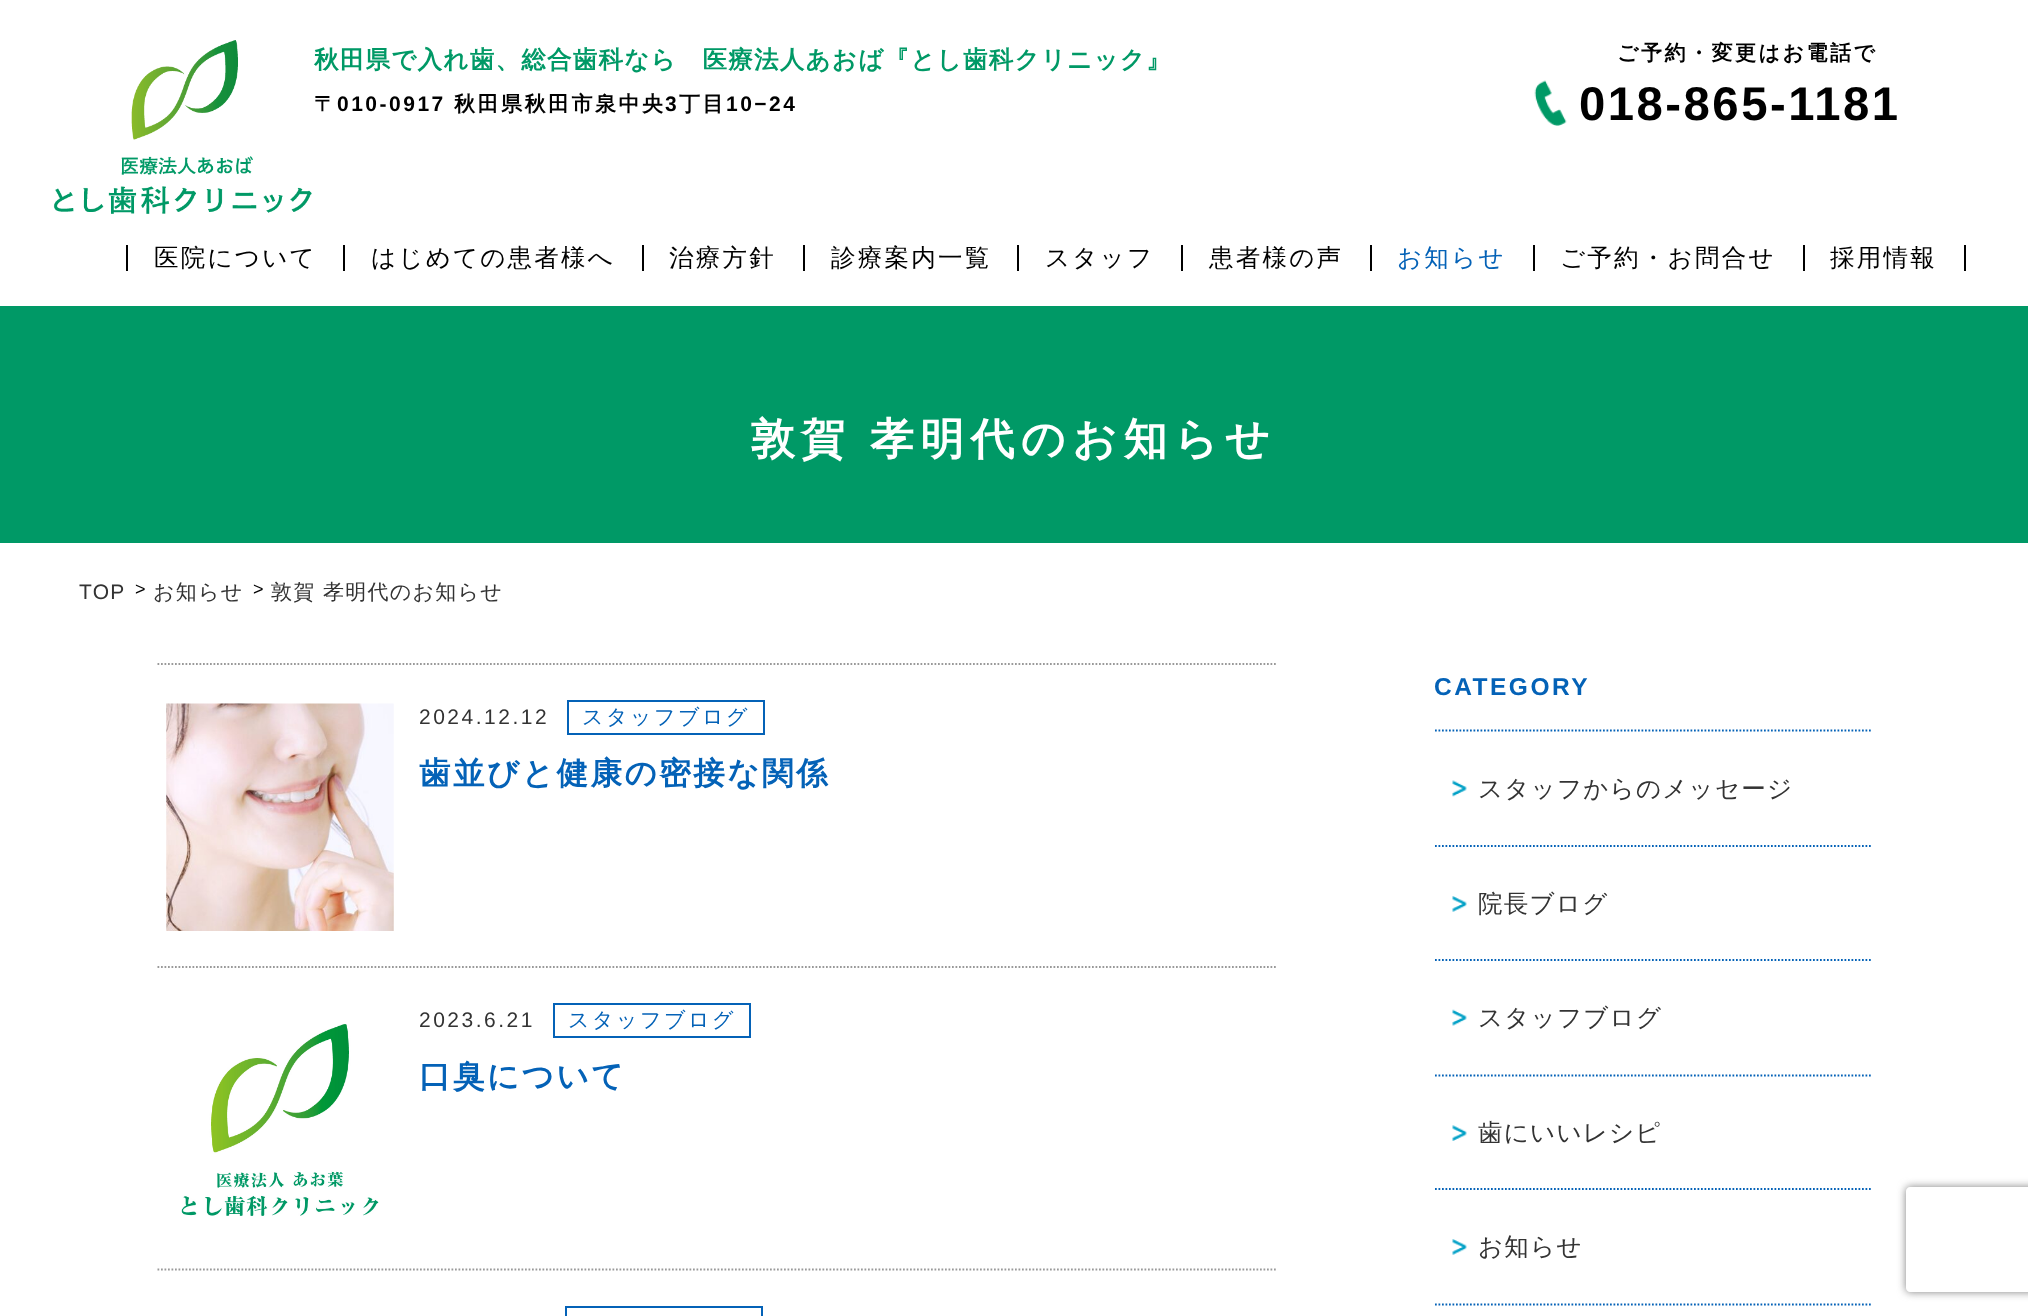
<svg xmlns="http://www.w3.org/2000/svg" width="2028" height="1316">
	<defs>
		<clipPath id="clip1"><path d="M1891 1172H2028V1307H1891ZM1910 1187H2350C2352 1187 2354 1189 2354 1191V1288C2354 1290 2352 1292 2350 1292H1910C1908 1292 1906 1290 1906 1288V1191C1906 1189 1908 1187 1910 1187Z" clip-rule="evenodd" /></clipPath>
	</defs>
	<rect width="100%" height="100%" fill="#FFFFFF" />
	<image x="53" y="40" width="259" height="174" href="assets/img1.png" />
	<text x="314" y="68" font-family="WenQuanYi Zen Hei" font-size="24.5" font-weight="700" letter-spacing="1.25" fill="#009966">秋田県で入れ歯、総合歯科なら　医療法人あおば『とし歯科クリニック』</text>
	<text x="314" y="111" font-family="WenQuanYi Zen Hei" font-size="21" font-weight="700" letter-spacing="2.5" fill="#000000">〒</text>
	<text x="337" y="111" font-family="Liberation Sans" font-size="21" font-weight="700" letter-spacing="2.5" fill="#000000">010-0917</text>
	<text x="454" y="111" font-family="WenQuanYi Zen Hei" font-size="21" font-weight="700" letter-spacing="2.5" fill="#000000">秋田県秋田市泉中央</text>
	<text x="665" y="111" font-family="Liberation Sans" font-size="21" font-weight="700" letter-spacing="2.5" fill="#000000">3</text>
	<text x="679" y="111" font-family="WenQuanYi Zen Hei" font-size="21" font-weight="700" letter-spacing="2.5" fill="#000000">丁目</text>
	<text x="726" y="111" font-family="Liberation Sans" font-size="21" font-weight="700" letter-spacing="2.5" fill="#000000">10−24</text>
	<text x="1617" y="60" font-family="WenQuanYi Zen Hei" font-size="21" font-weight="700" letter-spacing="2.5" fill="#000000">ご予約・変更はお電話で</text>
	<image x="1534" y="80" width="33" height="46" href="assets/img2.png" />
	<text x="1579" y="120" font-family="Liberation Sans" font-size="47.25" font-weight="700" letter-spacing="2.5" fill="#000000">018-865-1181</text>
	<rect x="1964" y="245" width="2" height="26" fill="#000000" />
	<rect x="126" y="245" width="2" height="26" fill="#000000" />
	<text x="154" y="266" font-family="WenQuanYi Zen Hei" font-size="24.5" font-weight="500" letter-spacing="2.25" fill="#000000">医院について</text>
	<rect x="343" y="245" width="2" height="26" fill="#000000" />
	<text x="371" y="266" font-family="WenQuanYi Zen Hei" font-size="24.5" font-weight="500" letter-spacing="2.25" fill="#000000">はじめての患者様へ</text>
	<rect x="642" y="245" width="2" height="26" fill="#000000" />
	<text x="669" y="266" font-family="WenQuanYi Zen Hei" font-size="24.5" font-weight="500" letter-spacing="2.25" fill="#000000">治療方針</text>
	<rect x="803" y="245" width="2" height="26" fill="#000000" />
	<text x="831" y="266" font-family="WenQuanYi Zen Hei" font-size="24.5" font-weight="500" letter-spacing="2.25" fill="#000000">診療案内一覧</text>
	<rect x="1017" y="245" width="2" height="26" fill="#000000" />
	<text x="1045" y="266" font-family="WenQuanYi Zen Hei" font-size="24.5" font-weight="500" letter-spacing="2.25" fill="#000000">スタッフ</text>
	<rect x="1181" y="245" width="2" height="26" fill="#000000" />
	<text x="1209" y="266" font-family="WenQuanYi Zen Hei" font-size="24.5" font-weight="500" letter-spacing="2.25" fill="#000000">患者様の声</text>
	<rect x="1370" y="245" width="2" height="26" fill="#000000" />
	<text x="1397" y="266" font-family="WenQuanYi Zen Hei" font-size="24.5" font-weight="500" letter-spacing="2.25" fill="#0462B7">お知らせ</text>
	<rect x="1533" y="245" width="2" height="26" fill="#000000" />
	<text x="1560" y="266" font-family="WenQuanYi Zen Hei" font-size="24.5" font-weight="500" letter-spacing="2.25" fill="#000000">ご予約・お問合せ</text>
	<rect x="1803" y="245" width="2" height="26" fill="#000000" />
	<text x="1830" y="266" font-family="WenQuanYi Zen Hei" font-size="24.5" font-weight="500" letter-spacing="2.25" fill="#000000">採用情報</text>
	<rect x="0" y="306" width="2028" height="237" fill="#009966" />
	<text x="751" y="454" word-spacing="-1" font-family="WenQuanYi Zen Hei" font-size="43.75" font-weight="700" letter-spacing="6.5" fill="#FFFFFF">敦賀 孝明代のお知らせ</text>
	<text x="79" y="599" font-family="Liberation Sans" font-size="21" letter-spacing="1.25" fill="#333333">TOP</text>
	<text x="135" y="595" font-family="Liberation Sans" font-size="18" letter-spacing="1.25" fill="#000000">&gt;</text>
	<text x="153" y="599" font-family="WenQuanYi Zen Hei" font-size="21" font-weight="500" letter-spacing="1.25" fill="#333333">お知らせ</text>
	<text x="253" y="595" font-family="Liberation Sans" font-size="18" letter-spacing="1.25" fill="#000000">&gt;</text>
	<text x="271" y="599" font-family="WenQuanYi Zen Hei" font-size="21" font-weight="500" letter-spacing="1.25" fill="#333333">敦賀 孝明代のお知らせ</text>
	<path d="M157.5 664H1277.5" fill="none" stroke="#999999" stroke-width="1.8" stroke-dasharray="1.75 1.75" />
	<image x="166" y="703" width="228" height="228" href="assets/img3.png" />
	<text x="419" y="724" font-family="Liberation Sans" font-size="21" letter-spacing="2.5" fill="#333333">2024.12.12</text>
	<rect x="568" y="701" width="196" height="33" fill="none" stroke="#0462B7" stroke-width="2" />
	<text x="582" y="724" font-family="WenQuanYi Zen Hei" font-size="21" font-weight="500" letter-spacing="2.5" fill="#0462B7">スタッフブログ</text>
	<text x="419" y="784" font-family="WenQuanYi Zen Hei" font-size="31.5" font-weight="700" letter-spacing="2.5" fill="#0462B7">歯並びと健康の密接な関係</text>
	<path d="M157.5 967H1277.5" fill="none" stroke="#999999" stroke-width="1.8" stroke-dasharray="1.75 1.75" />
	<image x="181" y="1024" width="198" height="192" href="assets/img4.png" />
	<text x="419" y="1027" font-family="Liberation Sans" font-size="21" letter-spacing="2.5" fill="#333333">2023.6.21</text>
	<rect x="554" y="1004" width="196" height="33" fill="none" stroke="#0462B7" stroke-width="2" />
	<text x="568" y="1027" font-family="WenQuanYi Zen Hei" font-size="21" font-weight="500" letter-spacing="2.5" fill="#0462B7">スタッフブログ</text>
	<text x="419" y="1087" font-family="WenQuanYi Zen Hei" font-size="31.5" font-weight="700" letter-spacing="2.5" fill="#0462B7">口臭について</text>
	<path d="M157.5 1269.5H1277.5" fill="none" stroke="#999999" stroke-width="1.8" stroke-dasharray="1.75 1.75" />
	<rect x="566" y="1307" width="196" height="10" fill="none" stroke="#0462B7" stroke-width="2" />
	<text x="1434" y="695" font-family="Liberation Sans" font-size="24.5" font-weight="700" letter-spacing="2.5" fill="#0462B7">CATEGORY</text>
	<path d="M1435 730.5H1872.5" fill="none" stroke="#0462B7" stroke-width="1.8" stroke-dasharray="1.75 1.75" />
	<image x="1452" y="780" width="15" height="17" href="assets/img5.png" />
	<text x="1478" y="797" font-family="WenQuanYi Zen Hei" font-size="24.5" font-weight="500" letter-spacing="1.25" fill="#333333">スタッフからのメッセージ</text>
	<path d="M1435 846H1872.5" fill="none" stroke="#0462B7" stroke-width="1.8" stroke-dasharray="1.75 1.75" />
	<image x="1452" y="896" width="15" height="16" href="assets/img6.png" />
	<text x="1478" y="912" font-family="WenQuanYi Zen Hei" font-size="24.5" font-weight="500" letter-spacing="1.25" fill="#333333">院長ブログ</text>
	<path d="M1435 960H1872.5" fill="none" stroke="#0462B7" stroke-width="1.8" stroke-dasharray="1.75 1.75" />
	<image x="1452" y="1009" width="15" height="17" href="assets/img7.png" />
	<text x="1478" y="1026" font-family="WenQuanYi Zen Hei" font-size="24.5" font-weight="500" letter-spacing="1.25" fill="#333333">スタッフブログ</text>
	<path d="M1435 1075.5H1872.5" fill="none" stroke="#0462B7" stroke-width="1.8" stroke-dasharray="1.75 1.75" />
	<image x="1452" y="1125" width="15" height="16" href="assets/img8.png" />
	<text x="1478" y="1141" font-family="WenQuanYi Zen Hei" font-size="24.5" font-weight="500" letter-spacing="1.25" fill="#333333">歯にいいレシピ</text>
	<path d="M1435 1189H1872.5" fill="none" stroke="#0462B7" stroke-width="1.8" stroke-dasharray="1.75 1.75" />
	<image x="1452" y="1239" width="15" height="16" href="assets/img6.png" />
	<text x="1478" y="1255" font-family="WenQuanYi Zen Hei" font-size="24.5" font-weight="500" letter-spacing="1.25" fill="#333333">お知らせ</text>
	<path d="M1435 1304.5H1872.5" fill="none" stroke="#0462B7" stroke-width="1.8" stroke-dasharray="1.75 1.75" />
	<g clip-path="url(#clip1)">
		<rect x="1906" y="1187" width="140" height="105" rx="4" fill="#808080" filter="blur(4.5px)" />
	</g>
</svg>
